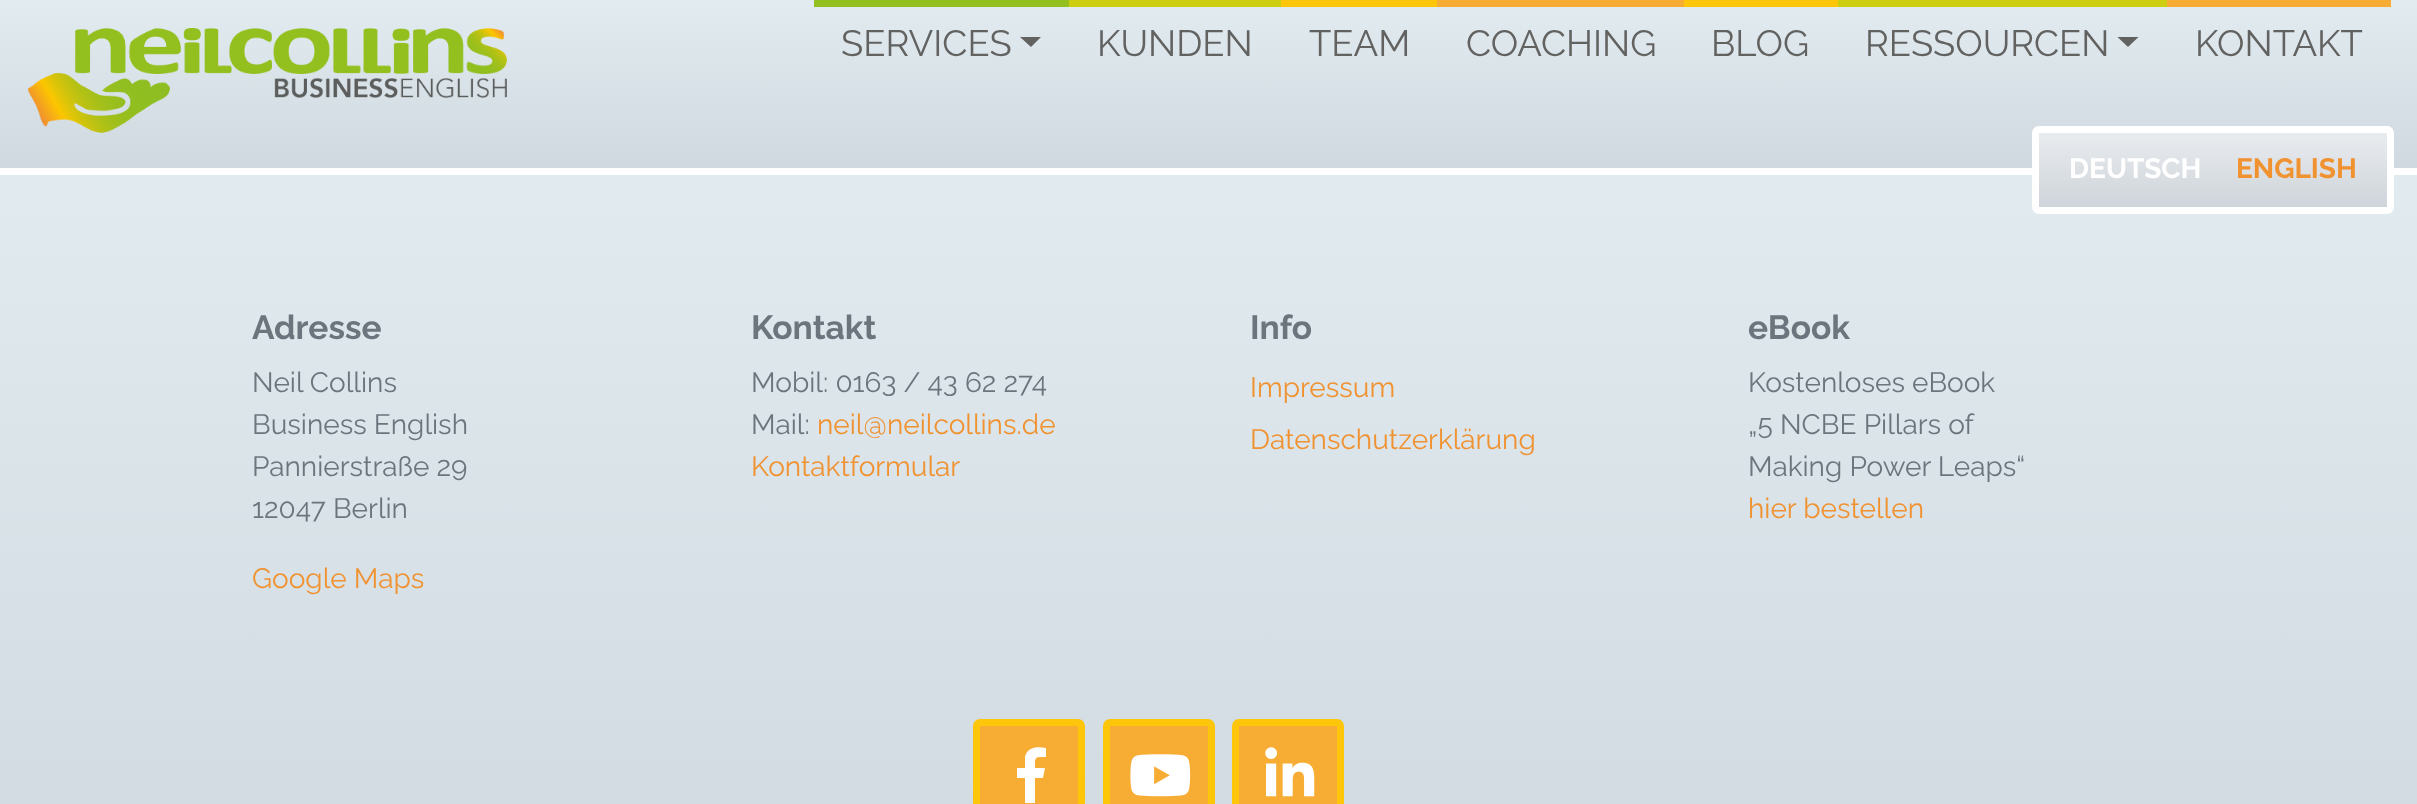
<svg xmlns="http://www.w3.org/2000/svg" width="2417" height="804">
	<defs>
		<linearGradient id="g1" gradientUnits="userSpaceOnUse" x1="1209" y1="168" x2="1209" y2="0"><stop offset="0" stop-color="#CFD9DF" /><stop offset="1" stop-color="#E2EBF0" /></linearGradient>
		<linearGradient id="g2" gradientUnits="userSpaceOnUse" x1="1209" y1="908" x2="1209" y2="154"><stop offset="0" stop-color="#CFD9DF" /><stop offset="1" stop-color="#E2EBF0" /></linearGradient>
		<linearGradient id="g3" gradientUnits="userSpaceOnUse" x1="2213" y1="207" x2="2213" y2="133"><stop offset="0" stop-color="#CED4DA" /><stop offset="1" stop-color="#E9ECEF" /></linearGradient>
	</defs>
	<rect width="100%" height="100%" fill="#FFFFFF" />
	<rect x="0" y="0" width="2417" height="168" fill="url(#g1)" />
	<image x="28" y="28" width="479" height="105" href="assets/img1.png" />
	<rect x="814" y="0" width="255" height="7" fill="#93C01F" />
	<text x="841" y="56" font-family="Raleway" font-size="36.5" font-weight="100" fill="#626261">SERVICES</text>
	<path d="M1020 37H1041L1031 47Z" fill="#626261" />
	<rect x="1069" y="0" width="212" height="7" fill="#CDCE10" />
	<text x="1097" y="56" font-family="Raleway" font-size="36.5" font-weight="100" fill="#626261">KUNDEN</text>
	<rect x="1281" y="0" width="156" height="7" fill="#FDC60A" />
	<text x="1309" y="56" font-family="Raleway" font-size="36.5" font-weight="100" fill="#626261">TEAM</text>
	<rect x="1437" y="0" width="247" height="7" fill="#F7AC34" />
	<text x="1466" y="56" font-family="Raleway" font-size="36.5" font-weight="100" fill="#626261">COACHING</text>
	<rect x="1684" y="0" width="154" height="7" fill="#FDC60A" />
	<text x="1711" y="56" font-family="Raleway" font-size="36.5" font-weight="100" fill="#626261">BLOG</text>
	<rect x="1838" y="0" width="329" height="7" fill="#CDCE10" />
	<text x="1865" y="56" font-family="Raleway" font-size="36.5" font-weight="100" fill="#626261">RESSOURCEN</text>
	<path d="M2117.5 37H2138.5L2128 47Z" fill="#626261" />
	<rect x="2167" y="0" width="224" height="7" fill="#F7AC34" />
	<text x="2195" y="56" font-family="Raleway" font-size="36.5" font-weight="100" fill="#626261">KONTAKT</text>
	<rect x="0" y="175" width="2417" height="629" fill="url(#g2)" />
	<text x="252" y="339" font-family="Raleway" font-size="33.5" font-weight="700" fill="#6C757D">Adresse</text>
	<g font-family="Raleway" font-size="28" font-weight="100" fill="#6C757D">
		<text x="252" y="392">Neil Collins</text>
		<text x="252" y="434">Business English</text>
		<text x="252" y="476">Pannierstraße 29</text>
		<text x="252" y="518">12047 Berlin</text>
	</g>
	<text x="252" y="588" font-family="Raleway" font-size="28" font-weight="100" fill="#F19231">Google Maps</text>
	<text x="751" y="339" font-family="Raleway" font-size="33.5" font-weight="700" fill="#6C757D">Kontakt</text>
	<g font-family="Raleway" font-size="28" font-weight="100" fill="#6C757D">
		<text x="751" y="392">Mobil: 0163 / 43 62 274</text>
		<text x="751" y="434">Mail:</text>
	</g>
	<g font-family="Raleway" font-size="28" font-weight="100" fill="#F19231">
		<text x="817" y="434">neil@neilcollins.de</text>
		<text x="751" y="476">Kontaktformular</text>
	</g>
	<text x="1250" y="339" font-family="Raleway" font-size="33.5" font-weight="700" fill="#6C757D">Info</text>
	<g font-family="Raleway" font-size="28" font-weight="100" fill="#F19231">
		<text x="1250" y="397">Impressum</text>
		<text x="1250" y="449">Datenschutzerklärung</text>
	</g>
	<text x="1748" y="339" font-family="Raleway" font-size="33.5" font-weight="700" fill="#6C757D">eBook</text>
	<g font-family="Raleway" font-size="28" font-weight="100" fill="#6C757D">
		<text x="1748" y="392">Kostenloses eBook</text>
		<text x="1748" y="434">„5 NCBE Pillars of</text>
		<text x="1748" y="476">Making Power Leaps“</text>
	</g>
	<text x="1748" y="518" font-family="Raleway" font-size="28" font-weight="100" fill="#F19231">hier bestellen</text>
	<rect x="976.5" y="722.5" width="105" height="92" rx="3.5" fill="#F7AC34" stroke="#FDC60A" stroke-width="7" />
	<path d="M1025 803V778H1017V768H1025V757C1027 747 1037 746 1046 748V757C1034 757 1035 757 1035 768H1045L1043 778H1035V803Z" fill="#FFFFFF" />
	<rect x="1106.5" y="722.5" width="105" height="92" rx="3.5" fill="#F7AC34" stroke="#FDC60A" stroke-width="7" />
	<image x="1130" y="754" width="61" height="43" href="assets/img2.png" />
	<rect x="1235.5" y="722.5" width="105" height="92" rx="3.5" fill="#F7AC34" stroke="#FDC60A" stroke-width="7" />
	<image x="1265" y="747" width="50" height="50" href="assets/img3.png" />
	<rect x="2039" y="133" width="348" height="74" fill="url(#g3)" />
	<rect x="2035.5" y="129.5" width="355" height="81" rx="3.5" fill="none" stroke="#FFFFFF" stroke-width="7" />
	<text x="2069" y="178" font-family="Raleway" font-size="28" font-weight="700" fill="#FFFFFF">DEUTSCH</text>
	<text x="2236" y="178" font-family="Raleway" font-size="28" font-weight="700" fill="#F19231">ENGLISH</text>
</svg>
